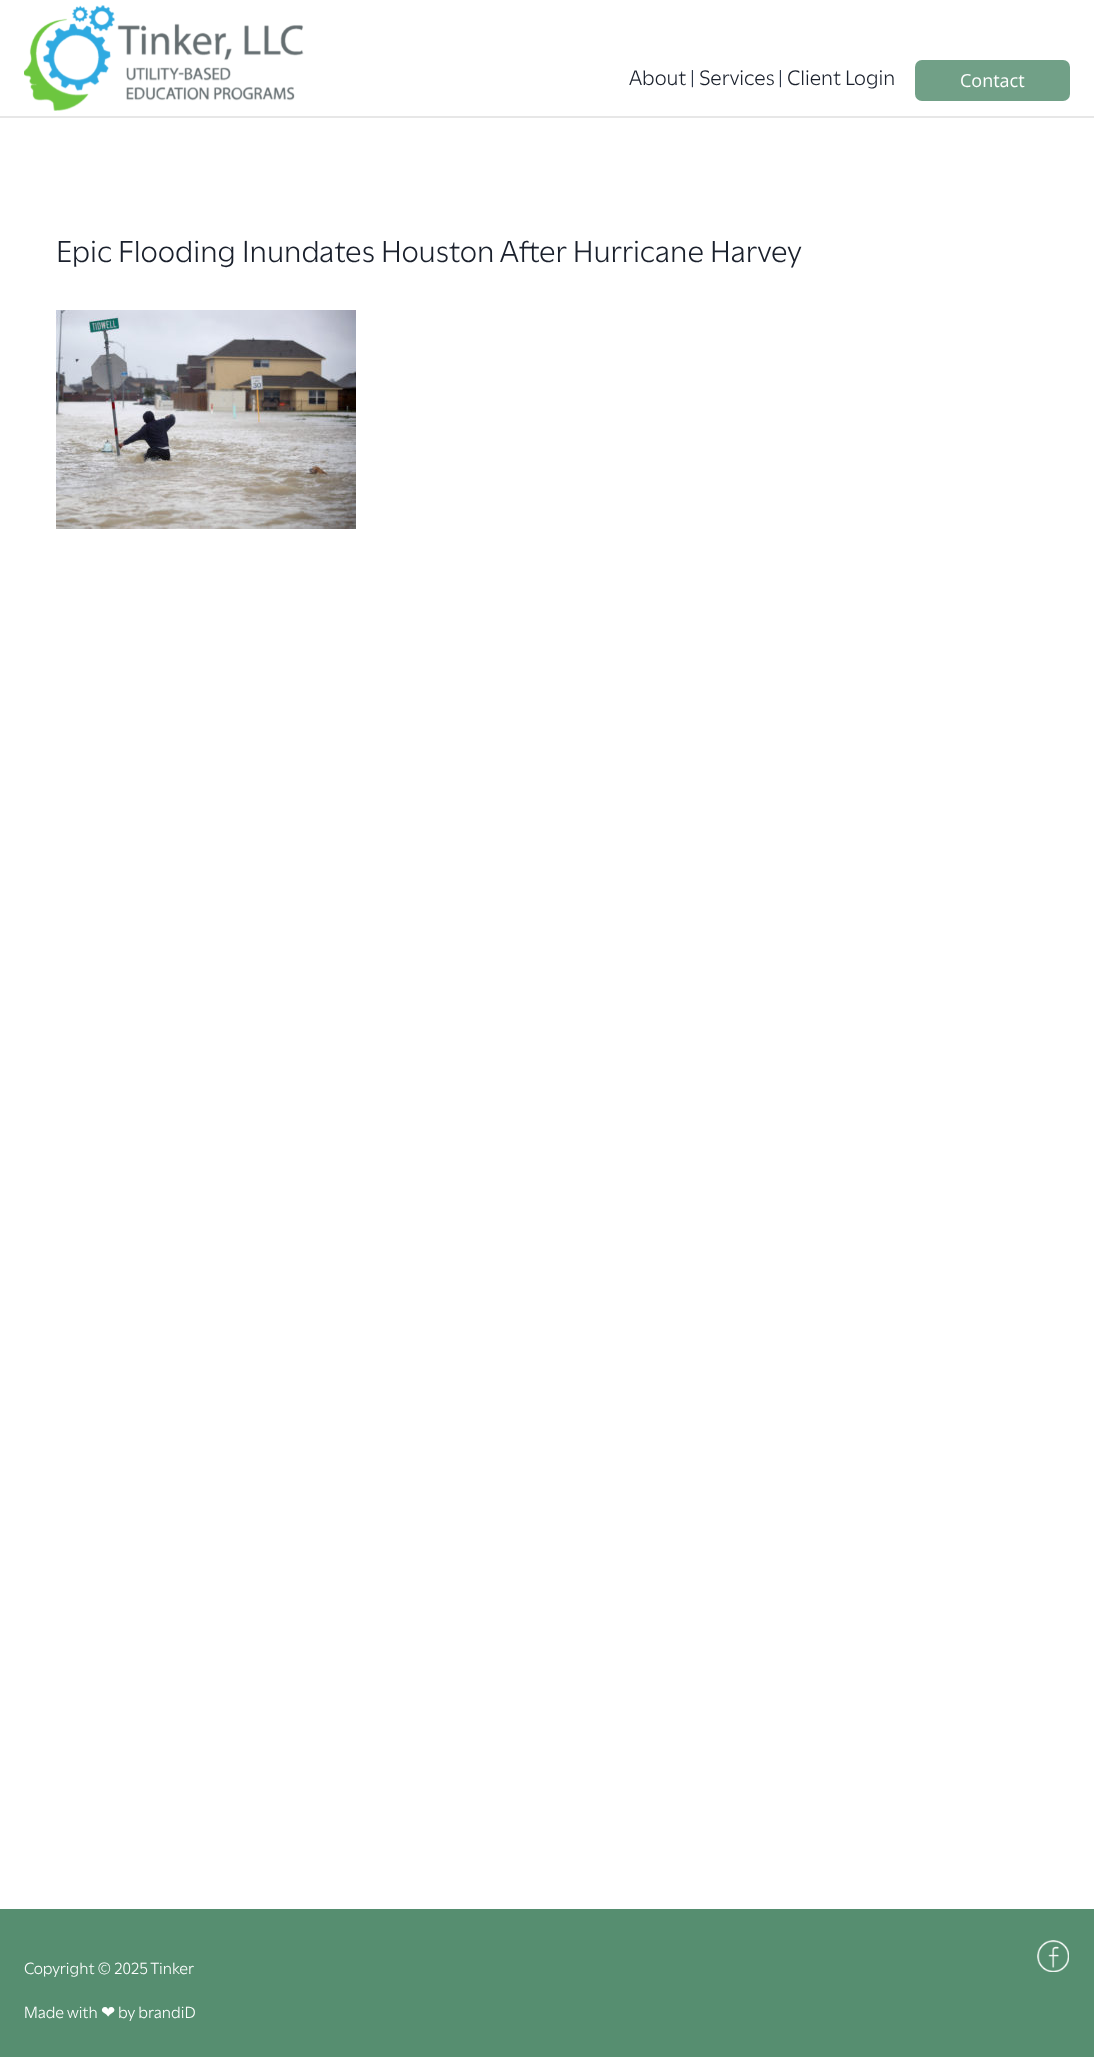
<svg xmlns="http://www.w3.org/2000/svg" width="1094" height="2057">
	<rect width="100%" height="100%" fill="#FFFFFF" />
	<rect x="0" y="116" width="1094" height="2" fill="#E7E7E7" />
	<image x="24" y="5" width="280" height="106" href="assets/img1.png" />
	<text x="629" y="85" font-family="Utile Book" font-size="22" fill="#1A202C">About</text>
	<text x="690" y="85" font-family="Utile Book" font-size="22" fill="#2D3748">|</text>
	<text x="699" y="85" font-family="Utile Book" font-size="22" fill="#1A202C">Services</text>
	<text x="778" y="85" font-family="Utile Book" font-size="22" fill="#2D3748">|</text>
	<text x="787" y="85" font-family="Utile Book" font-size="22" fill="#1A202C">Client Login</text>
	<rect x="915" y="60" width="155" height="41" rx="7" fill="#71A087" />
	<text x="960" y="87" font-family="Open Sans" font-size="18" fill="#FFFFFF">Contact</text>
	<text x="56" y="262" font-family="Utile Book" font-size="32" fill="#1A202C">Epic Flooding Inundates Houston After Hurricane Harvey</text>
	<image x="56" y="310" width="300" height="219" href="assets/img2.png" />
	<rect x="0" y="1909" width="1094" height="148" fill="#568E70" />
	<text x="24" y="1974" font-family="Utile Book" font-size="17" fill="#FFFFFF">Copyright © 2025 Tinker</text>
	<image x="1037" y="1940" width="32" height="32" href="assets/img3.png" />
	<text x="24" y="2018" font-family="Utile Book" font-size="17" fill="#FFFFFF">Made with</text>
	<text x="101" y="2018" font-family="DejaVu Sans" font-size="17" fill="#FFFFFF">❤︎</text>
	<text x="118" y="2018" font-family="Utile Book" font-size="17" fill="#FFFFFF">by brandiD</text>
</svg>
